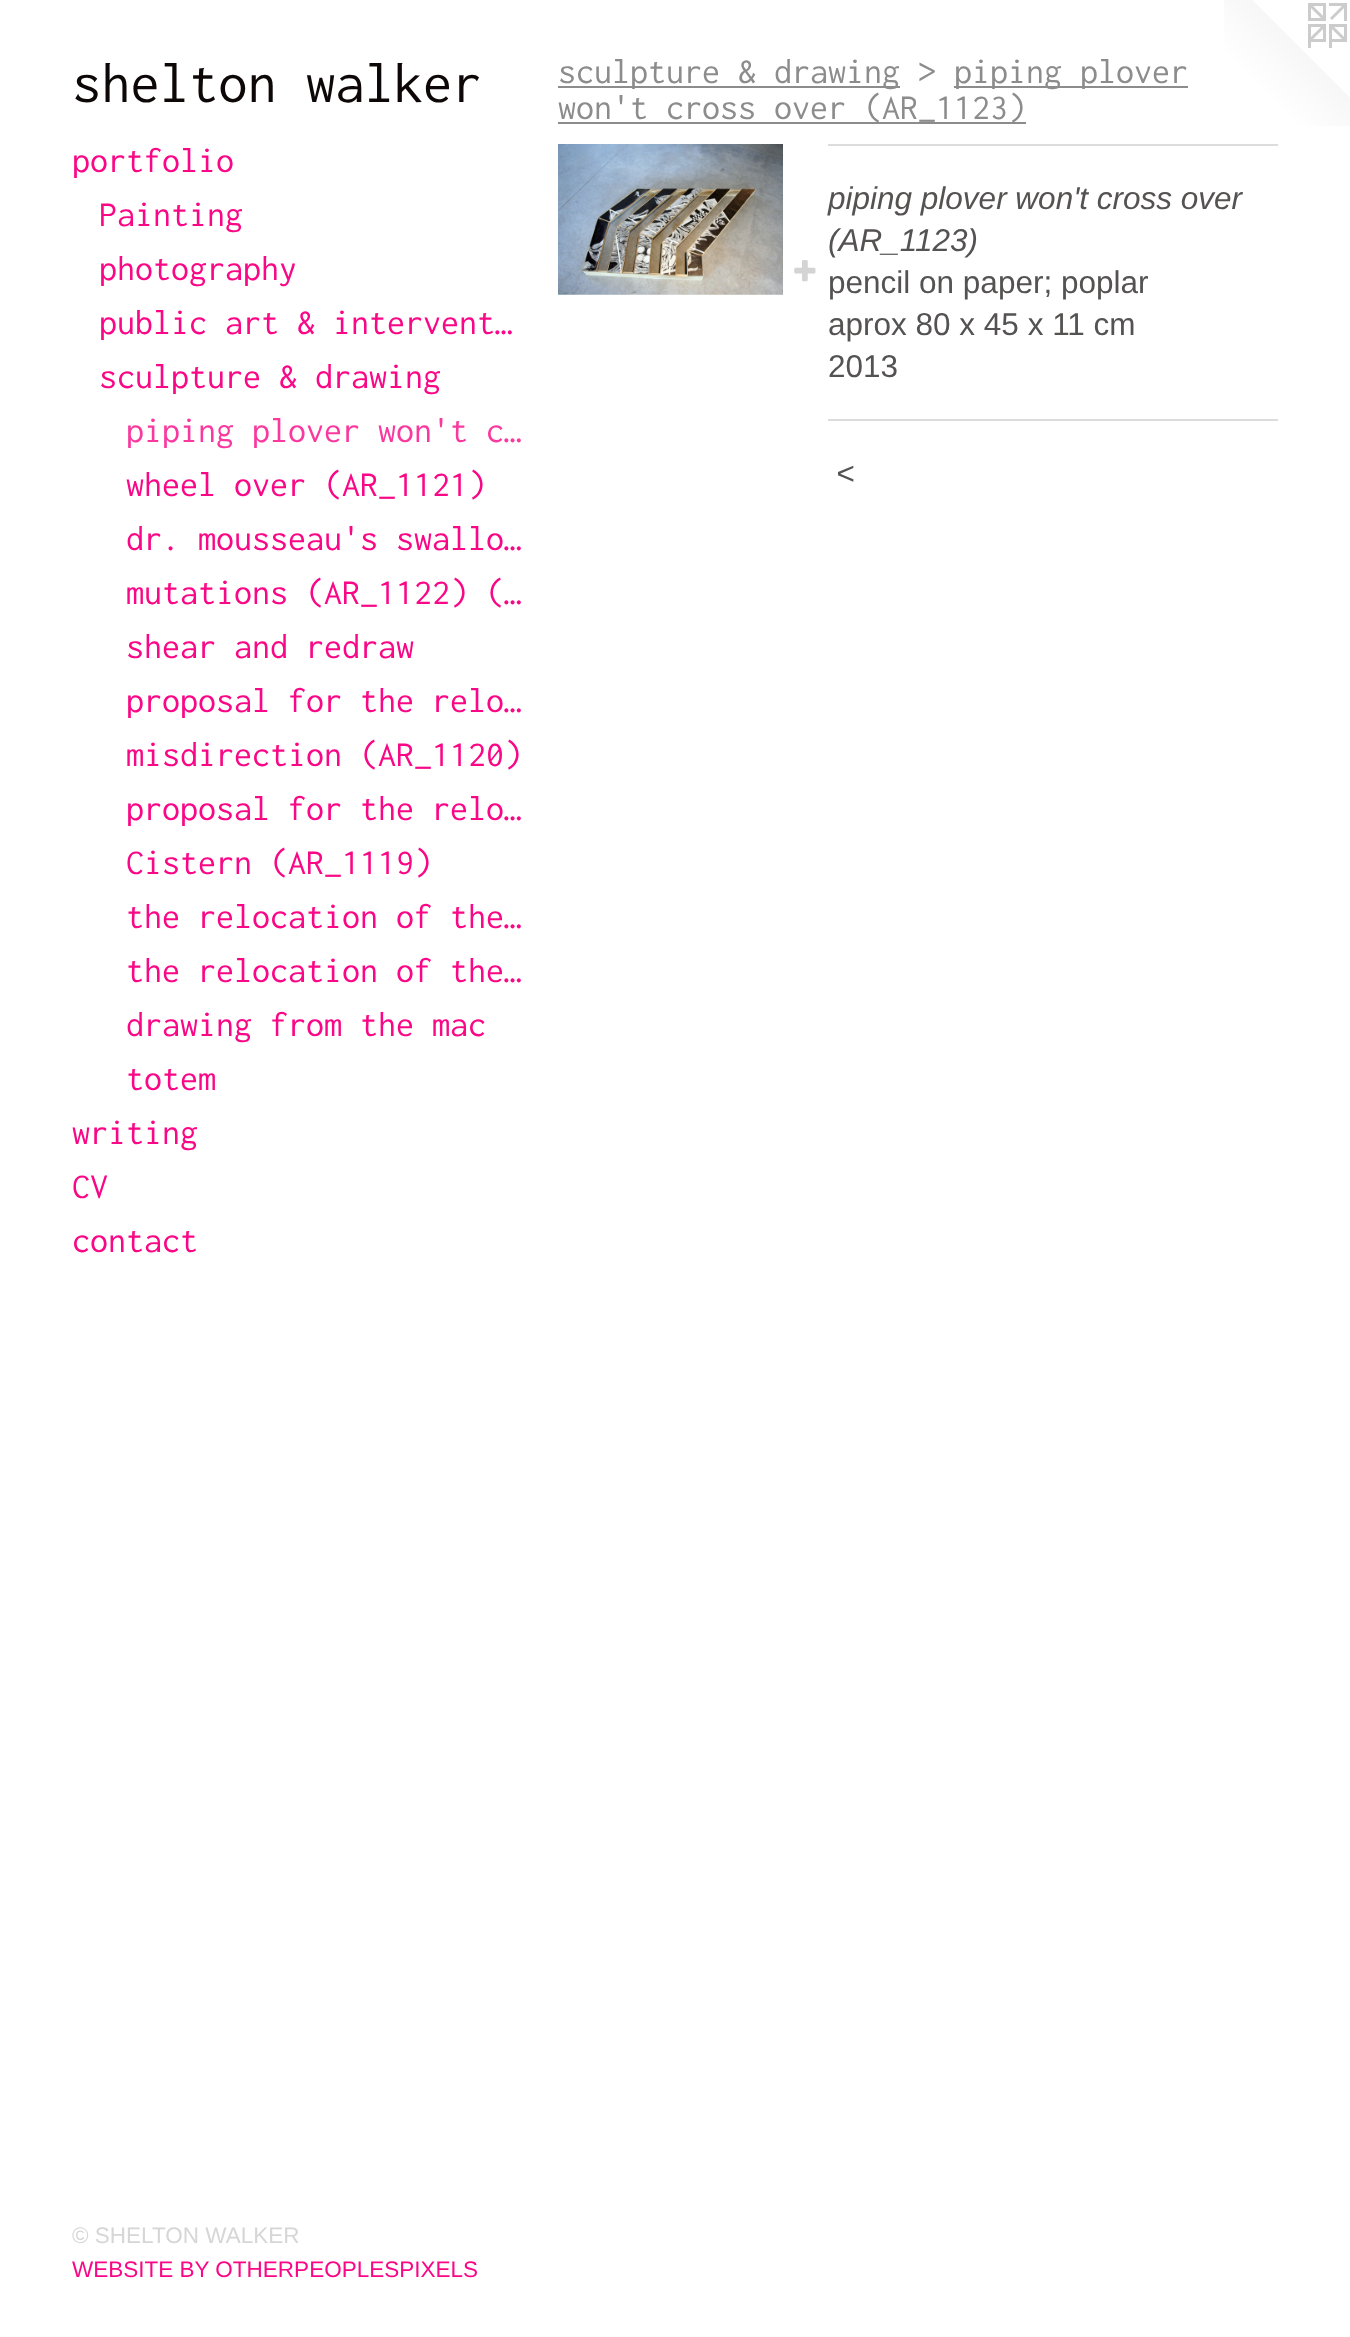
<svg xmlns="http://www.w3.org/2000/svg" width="1350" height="2337">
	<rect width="100%" height="100%" fill="#FFFFFF" />
	<text x="72" y="102" font-family="Inconsolata" font-size="58.5" fill="#0E0707">shelton walker</text>
	<g font-family="Inconsolata" font-size="36" fill="#F90786">
		<text x="72" y="172">portfolio</text>
		<text x="99" y="226">Painting</text>
		<text x="99" y="280">photography</text>
		<text x="99" y="334">public art &amp; intervent…</text>
		<text x="99" y="388">sculpture &amp; drawing</text>
	</g>
	<text x="126" y="442" font-family="Inconsolata" font-size="36" fill="#FA399E">piping plover won't c…</text>
	<g font-family="Inconsolata" font-size="36" fill="#F90786">
		<text x="126" y="496">wheel over (AR_1121)</text>
		<text x="126" y="550">dr. mousseau's swallo…</text>
		<text x="126" y="604">mutations (AR_1122) (…</text>
		<text x="126" y="658">shear and redraw</text>
		<text x="126" y="712">proposal for the relo…</text>
		<text x="126" y="766">misdirection (AR_1120)</text>
		<text x="126" y="820">proposal for the relo…</text>
		<text x="126" y="874">Cistern (AR_1119)</text>
		<text x="126" y="928">the relocation of the…</text>
		<text x="126" y="982">the relocation of the…</text>
		<text x="126" y="1036">drawing from the mac</text>
		<text x="126" y="1090">totem</text>
		<text x="72" y="1144">writing</text>
		<text x="72" y="1198">CV</text>
		<text x="72" y="1252">contact</text>
	</g>
	<text x="72" y="2243" font-family="Liberation Sans" font-size="22.5" fill="#D6D6D6">© SHELTON WALKER</text>
	<text x="72" y="2277" font-family="Liberation Sans" font-size="22.5" fill="#F90786">WEBSITE BY OTHERPEOPLESPIXELS</text>
	<rect x="558" y="86" width="342" height="2" fill="#8C8C8C" />
	<text x="558" y="83" font-family="Inconsolata" font-size="36" fill="#8C8C8C">sculpture &amp; drawing &gt;</text>
	<rect x="954" y="86" width="234" height="2" fill="#8C8C8C" />
	<text x="954" y="83" font-family="Inconsolata" font-size="36" fill="#8C8C8C">piping plover</text>
	<rect x="558" y="122" width="468" height="2" fill="#8C8C8C" />
	<text x="558" y="119" font-family="Inconsolata" font-size="36" fill="#8C8C8C">won't cross over (AR_1123)</text>
	<image x="558" y="144" width="225" height="151" href="assets/img1.png" />
	<image x="794" y="260" width="22" height="22" href="assets/img2.png" />
	<rect x="828" y="144" width="450" height="2" fill="#DDDCDC" />
	<g font-family="Liberation Sans" font-size="31.5" font-style="italic" fill="#555252">
		<text x="828" y="209">piping plover won't cross over</text>
		<text x="828" y="251">(AR_1123)</text>
	</g>
	<g font-family="Liberation Sans" font-size="31.5" fill="#555252">
		<text x="828" y="293">pencil on paper; poplar</text>
		<text x="828" y="335">aprox 80 x 45 x 11 cm</text>
		<text x="828" y="377">2013</text>
	</g>
	<rect x="828" y="419" width="450" height="2" fill="#DDDCDC" />
	<text x="836" y="484" font-family="Liberation Sans" font-size="31.5" font-style="italic" letter-spacing="2" fill="#555252">&lt;</text>
	<image x="1224" y="0" width="126" height="126" href="assets/img3.png" />
</svg>
